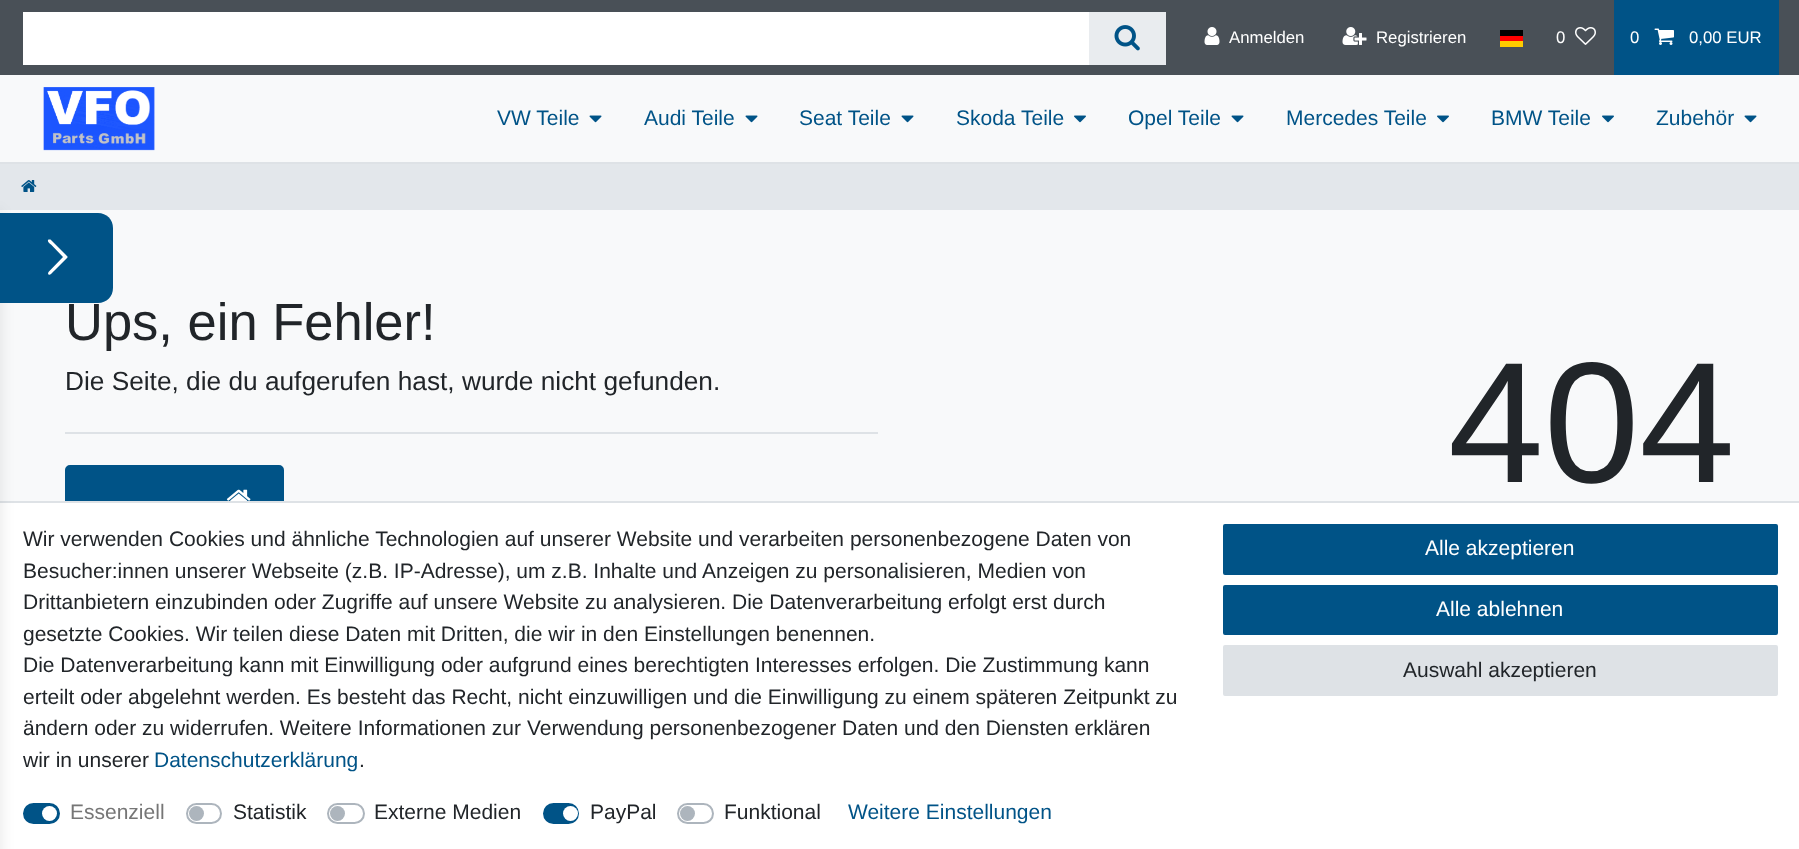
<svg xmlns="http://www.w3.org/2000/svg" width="1799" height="849">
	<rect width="100%" height="100%" fill="#F8F9FA" />
	<rect x="0" y="0" width="1799" height="75" fill="#495057" />
	<rect x="23" y="12" width="1066" height="53" fill="#FFFFFF" />
	<rect x="1089" y="12" width="77" height="53" fill="#E9ECEF" />
	<image x="1114" y="25" width="26" height="26" href="assets/img1.png" />
	<image x="1204" y="27" width="16" height="18" href="assets/img2.png" />
	<text x="1229" y="43" font-family="Liberation Sans" font-size="16.75" fill="#FFFFFF">Anmelden</text>
	<image x="1342" y="27" width="25" height="18" href="assets/img3.png" />
	<text x="1376" y="43" font-family="Liberation Sans" font-size="16.75" fill="#FFFFFF">Registrieren</text>
	<rect x="1500" y="41" width="23" height="6" fill="#FFCC00" />
	<rect x="1500" y="30" width="23" height="6" fill="#000000" />
	<rect x="1500" y="36" width="23" height="5" fill="#FF0000" />
	<text x="1556" y="43" font-family="Liberation Sans" font-size="16.75" fill="#FFFFFF">0</text>
	<image x="1575" y="27" width="21" height="18" href="assets/img4.png" />
	<rect x="1614" y="0" width="165" height="75" fill="#005387" />
	<text x="1630" y="43" font-family="Liberation Sans" font-size="16.75" fill="#FFFFFF">0</text>
	<image x="1654" y="28" width="20" height="17" href="assets/img5.png" />
	<text x="1689" y="43" font-family="Liberation Sans" font-size="16.75" fill="#FFFFFF">0,00 EUR</text>
	<rect x="0" y="162" width="1799" height="2" fill="#DEE2E6" />
	<image x="43" y="87" width="112" height="64" href="assets/img6.png" />
	<text x="497" y="125" font-family="Liberation Sans" font-size="21" fill="#005387">VW Teile</text>
	<image x="589" y="115" width="13" height="8" href="assets/img7.png" />
	<text x="644" y="125" font-family="Liberation Sans" font-size="21" fill="#005387">Audi Teile</text>
	<image x="745" y="115" width="13" height="8" href="assets/img7.png" />
	<text x="799" y="125" font-family="Liberation Sans" font-size="21" fill="#005387">Seat Teile</text>
	<image x="901" y="115" width="13" height="8" href="assets/img7.png" />
	<text x="956" y="125" font-family="Liberation Sans" font-size="21" fill="#005387">Skoda Teile</text>
	<image x="1074" y="115" width="12" height="8" href="assets/img8.png" />
	<text x="1128" y="125" font-family="Liberation Sans" font-size="21" fill="#005387">Opel Teile</text>
	<image x="1231" y="115" width="13" height="8" href="assets/img7.png" />
	<text x="1286" y="125" font-family="Liberation Sans" font-size="21" fill="#005387">Mercedes Teile</text>
	<image x="1437" y="115" width="12" height="8" href="assets/img8.png" />
	<text x="1491" y="125" font-family="Liberation Sans" font-size="21" fill="#005387">BMW Teile</text>
	<image x="1602" y="115" width="12" height="8" href="assets/img8.png" />
	<text x="1656" y="125" font-family="Liberation Sans" font-size="21" fill="#005387">Zubehör</text>
	<image x="1744" y="115" width="13" height="8" href="assets/img7.png" />
	<rect x="0" y="164" width="1799" height="46" fill="#E3E7EB" />
	<image x="21" y="180" width="16" height="12" href="assets/img9.png" />
	<text x="65" y="340" font-family="Liberation Sans" font-size="52.5" fill="#212529">Ups, ein Fehler!</text>
	<text x="65" y="390" font-family="Liberation Sans" font-size="26.25" fill="#212529">Die Seite, die du aufgerufen hast, wurde nicht gefunden.</text>
	<rect x="65" y="432" width="813" height="2" fill="#DEE2E6" />
	<rect x="66" y="466" width="217" height="69" rx="4" fill="#005387" stroke="#005387" stroke-width="2" />
	<image x="226" y="489" width="25" height="12" href="assets/img10.png" />
	<text x="1448" y="482" font-family="Liberation Sans" font-size="172" fill="#212529">404</text>
	<rect x="0" y="503" width="1799" height="346" fill="#FFFFFF" />
	<rect x="0" y="501" width="1799" height="2" fill="#DEE2E6" />
	<g font-family="Liberation Sans" font-size="21" fill="#212529">
		<text x="23" y="546">Wir verwenden Cookies und ähnliche Technologien auf unserer Website und verarbeiten personenbezogene Daten von</text>
		<text x="23" y="578">Besucher:innen unserer Webseite (z.B. IP-Adresse), um z.B. Inhalte und Anzeigen zu personalisieren, Medien von</text>
		<text x="23" y="609">Drittanbietern einzubinden oder Zugriffe auf unsere Website zu analysieren. Die Datenverarbeitung erfolgt erst durch</text>
		<text x="23" y="641">gesetzte Cookies. Wir teilen diese Daten mit Dritten, die wir in den Einstellungen benennen.</text>
		<text x="23" y="672">Die Datenverarbeitung kann mit Einwilligung oder aufgrund eines berechtigten Interesses erfolgen. Die Zustimmung kann</text>
		<text x="23" y="704">erteilt oder abgelehnt werden. Es besteht das Recht, nicht einzuwilligen und die Einwilligung zu einem späteren Zeitpunkt zu</text>
		<text x="23" y="735">ändern oder zu widerrufen. Weitere Informationen zur Verwendung personenbezogener Daten und den Diensten erklären</text>
		<text x="23" y="767">wir in unserer</text>
	</g>
	<text x="154" y="767" font-family="Liberation Sans" font-size="21" fill="#005387">Datenschutzerklärung</text>
	<text x="359" y="767" font-family="Liberation Sans" font-size="21" fill="#212529">.</text>
	<rect x="24" y="804" width="35" height="19" rx="9.5" fill="#005387" stroke="#005387" stroke-width="2" />
	<text x="70" y="819" font-family="Liberation Sans" font-size="21" fill="#767676">Essenziell</text>
	<circle cx="49.5" cy="813.5" r="7.5" fill="#FFFFFF" />
	<rect x="187" y="804" width="34" height="19" rx="9.5" fill="none" stroke="#ADB5BD" stroke-width="2" />
	<text x="233" y="819" font-family="Liberation Sans" font-size="21" fill="#212529">Statistik</text>
	<circle cx="196.5" cy="813.5" r="7.5" fill="#ADB5BD" />
	<rect x="328" y="804" width="36" height="19" rx="9.5" fill="none" stroke="#ADB5BD" stroke-width="2" />
	<text x="374" y="819" font-family="Liberation Sans" font-size="21" fill="#212529">Externe Medien</text>
	<circle cx="337.5" cy="813.5" r="7.5" fill="#ADB5BD" />
	<rect x="544" y="804" width="34" height="19" rx="9.5" fill="#005387" stroke="#005387" stroke-width="2" />
	<text x="590" y="819" font-family="Liberation Sans" font-size="21" fill="#212529">PayPal</text>
	<circle cx="570.5" cy="813.5" r="7.5" fill="#FFFFFF" />
	<rect x="678" y="804" width="35" height="19" rx="9.5" fill="none" stroke="#ADB5BD" stroke-width="2" />
	<text x="724" y="819" font-family="Liberation Sans" font-size="21" fill="#212529">Funktional</text>
	<circle cx="687.5" cy="813.5" r="7.5" fill="#ADB5BD" />
	<text x="848" y="819" font-family="Liberation Sans" font-size="21" fill="#005387">Weitere Einstellungen</text>
	<rect x="1224" y="525" width="553" height="49" rx="1" fill="#005387" stroke="#005387" stroke-width="2" />
	<text x="1425" y="555" font-family="Liberation Sans" font-size="21" fill="#FFFFFF">Alle akzeptieren</text>
	<rect x="1224" y="586" width="553" height="48" rx="1" fill="#005387" stroke="#005387" stroke-width="2" />
	<text x="1436" y="616" font-family="Liberation Sans" font-size="21" fill="#FFFFFF">Alle ablehnen</text>
	<rect x="1224" y="646" width="553" height="49" rx="1" fill="#DEE2E6" stroke="#DEE2E6" stroke-width="2" />
	<text x="1403" y="677" font-family="Liberation Sans" font-size="21" fill="#212529">Auswahl akzeptieren</text>
	<rect x="-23" y="213" width="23" height="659" fill="#000000" fill-opacity="0.1" filter="blur(7.5px)" />
	<path d="M0 213H98C106.5 213 113 219.5 113 228V288C113 296.5 106.5 303 98 303H0Z" fill="#005387" />
	<path d="M51 240L67.5 256.5V257.5L54.5 270.5C51.5 273.5 49 276.5 48 273.5L48.5 272L63 257L51 244.5C50 244 46.5 241 48.5 239.5H50.5Z" fill="#FFFFFF" />
</svg>
